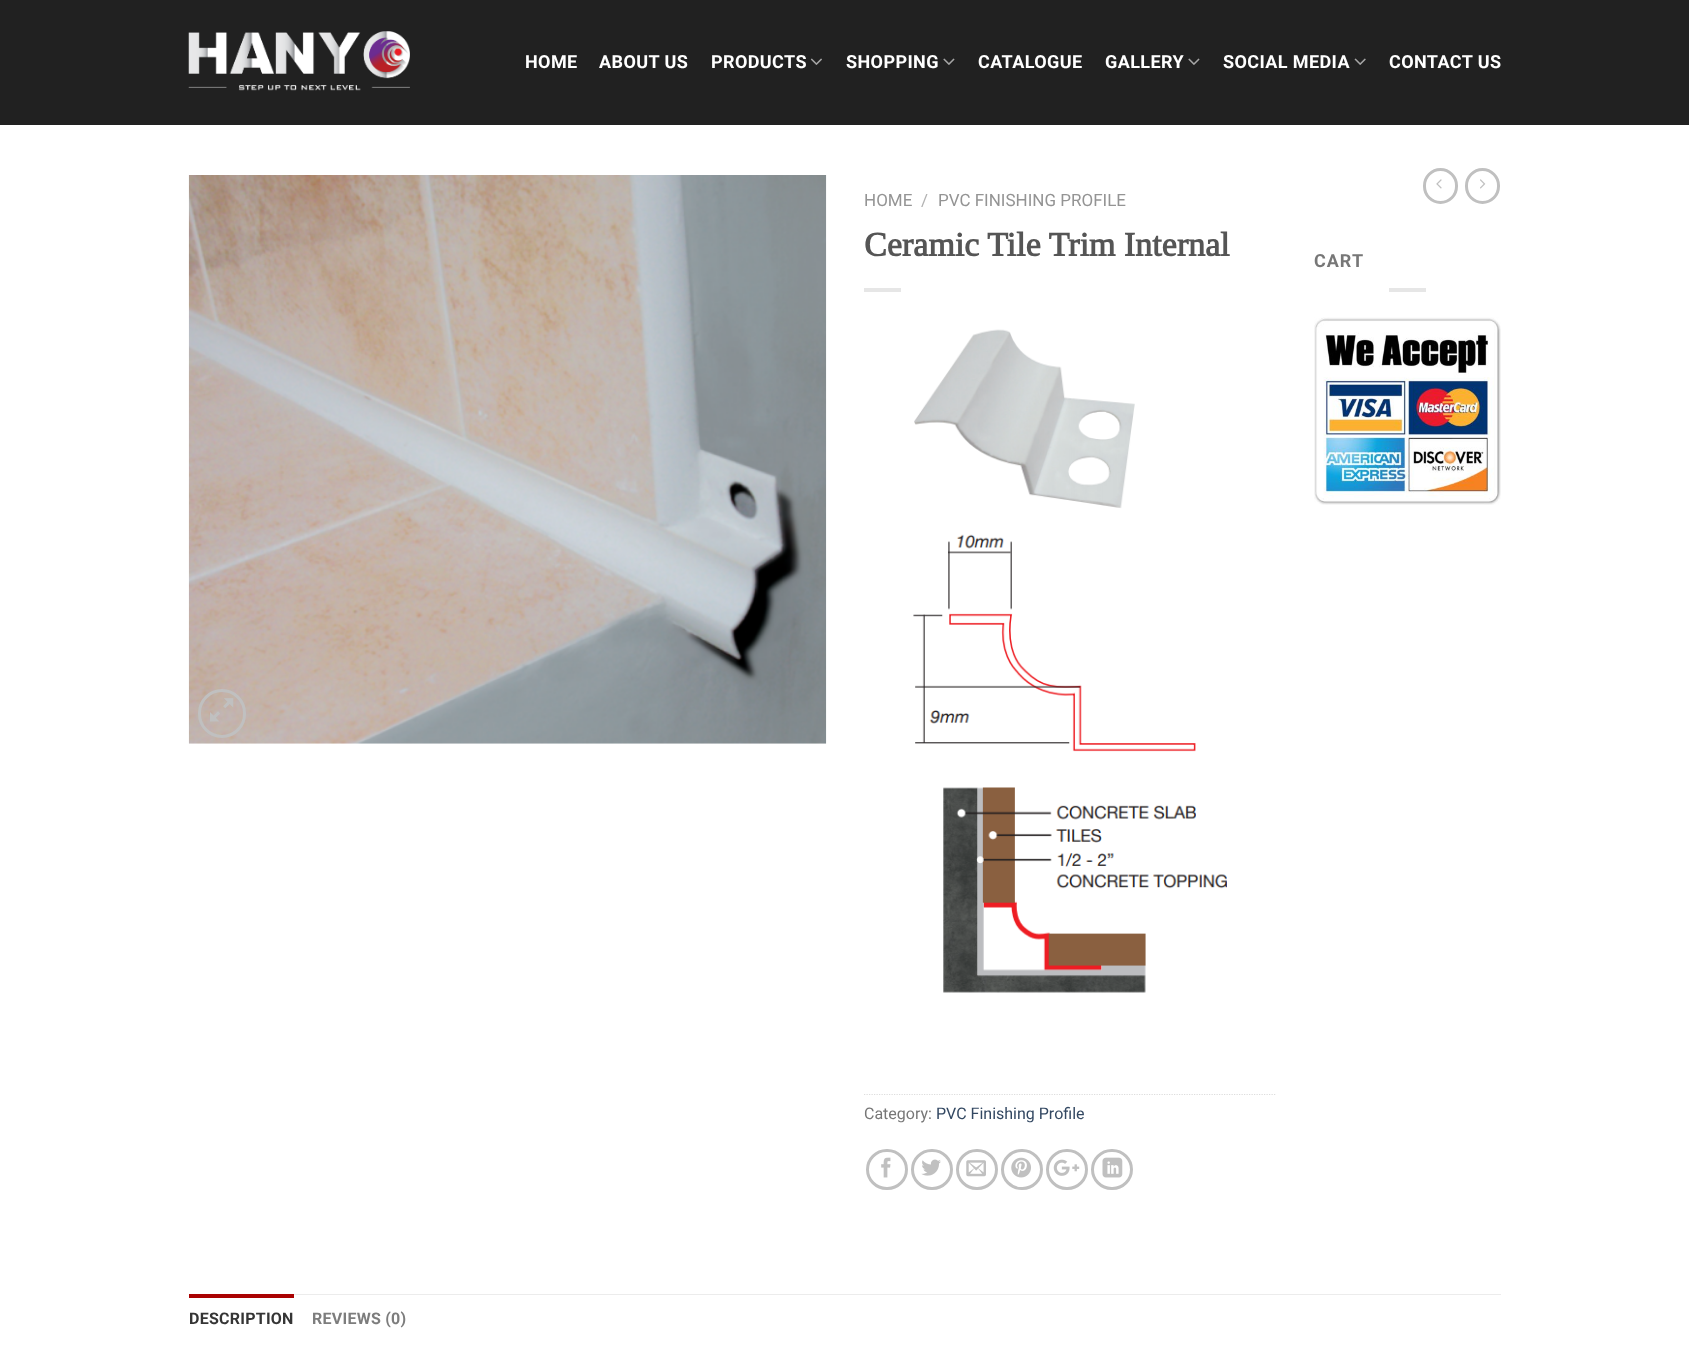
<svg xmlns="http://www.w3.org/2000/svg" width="1689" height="1351">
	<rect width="100%" height="100%" fill="#FFFFFF" />
	<rect x="0" y="0" width="1689" height="125" fill="#212121" />
	<image x="188" y="31" width="222" height="60" href="assets/img1.png" />
	<g font-family="Roboto" font-size="18" font-weight="700" letter-spacing="0.4" fill="#FFFFFF">
		<text x="525" y="68">HOME</text>
		<text x="599" y="68">ABOUT US</text>
		<text x="711" y="68">PRODUCTS</text>
	</g>
	<image x="810" y="58" width="12" height="7" href="assets/img2.png" />
	<text x="846" y="68" font-family="Roboto" font-size="18" font-weight="700" letter-spacing="0.4" fill="#FFFFFF">SHOPPING</text>
	<image x="943" y="58" width="12" height="7" href="assets/img3.png" />
	<g font-family="Roboto" font-size="18" font-weight="700" letter-spacing="0.4" fill="#FFFFFF">
		<text x="978" y="68">CATALOGUE</text>
		<text x="1105" y="68">GALLERY</text>
	</g>
	<image x="1188" y="58" width="12" height="7" href="assets/img3.png" />
	<text x="1223" y="68" font-family="Roboto" font-size="18" font-weight="700" letter-spacing="0.4" fill="#FFFFFF">SOCIAL MEDIA</text>
	<image x="1354" y="58" width="12" height="7" href="assets/img4.png" />
	<text x="1389" y="68" font-family="Roboto" font-size="18" font-weight="700" letter-spacing="0.4" fill="#FFFFFF">CONTACT US</text>
	<image x="188" y="175" width="639" height="569" href="assets/img5.png" />
	<rect x="199.5" y="690.5" width="45" height="46" rx="22.5" fill="none" stroke="#C0C0C0" stroke-width="3" />
	<image x="210" y="698" width="24" height="24" href="assets/img6.png" />
	<text x="864" y="206" font-family="Roboto" font-size="17" fill="#949494">HOME</text>
	<text x="921" y="206" font-family="Roboto" font-size="17" fill="#B2B2B2">/</text>
	<text x="938" y="206" font-family="Roboto" font-size="17" fill="#949494">PVC FINISHING PROFILE</text>
	<text x="864" y="256" font-family="Tinos" font-size="34" font-weight="700" fill="#555555">Ceramic Tile Trim Internal</text>
	<rect x="864" y="288" width="37" height="4" fill="#E6E6E6" />
	<image x="913" y="329" width="314" height="664" href="assets/img7.png" />
	<path d="M864 1094.5H1276" fill="none" stroke="#DDDDDD" stroke-width="1.2" stroke-dasharray="1.25 1.25" />
	<text x="864" y="1119" font-family="Roboto" font-size="16" fill="#777777">Category:</text>
	<text x="936" y="1119" font-family="Roboto" font-size="16" fill="#334862">PVC Finishing Profile</text>
	<rect x="867.5" y="1150.5" width="39" height="38" rx="19" fill="none" stroke="#C0C0C0" stroke-width="3" />
	<image x="881" y="1157" width="10" height="21" href="assets/img8.png" />
	<rect x="912.5" y="1150.5" width="39" height="38" rx="19" fill="none" stroke="#C0C0C0" stroke-width="3" />
	<image x="921" y="1159" width="20" height="17" href="assets/img9.png" />
	<rect x="957.5" y="1150.5" width="39" height="38" rx="19" fill="none" stroke="#C0C0C0" stroke-width="3" />
	<image x="966" y="1160" width="20" height="17" href="assets/img10.png" />
	<rect x="1002.5" y="1150.5" width="39" height="38" rx="19" fill="none" stroke="#C0C0C0" stroke-width="3" />
	<image x="1011" y="1157" width="20" height="21" href="assets/img11.png" />
	<rect x="1047.5" y="1150.5" width="39" height="38" rx="19" fill="none" stroke="#C0C0C0" stroke-width="3" />
	<image x="1053" y="1159" width="27" height="17" href="assets/img12.png" />
	<rect x="1092.5" y="1150.5" width="39" height="38" rx="19" fill="none" stroke="#C0C0C0" stroke-width="3" />
	<image x="1102" y="1157" width="21" height="21" href="assets/img13.png" />
	<rect x="1424.5" y="169.5" width="32" height="33" rx="16" fill="none" stroke="#C0C0C0" stroke-width="3" />
	<image x="1436" y="179" width="6" height="10" href="assets/img14.png" />
	<rect x="1466.5" y="169.5" width="32" height="33" rx="16" fill="none" stroke="#C0C0C0" stroke-width="3" />
	<image x="1480" y="179" width="6" height="10" href="assets/img15.png" />
	<text x="1314" y="267" font-family="Roboto" font-size="18" font-weight="700" letter-spacing="1" fill="#777777">CART</text>
	<rect x="1389" y="288" width="37" height="4" fill="#E6E6E6" />
	<image x="1314" y="317" width="187" height="188" href="assets/img16.png" />
	<rect x="294" y="1294" width="1207" height="1" fill="#ECECEC" />
	<rect x="189" y="1294" width="105" height="4" fill="#AA0202" />
	<text x="189" y="1324" font-family="Roboto" font-size="16" font-weight="700" letter-spacing="0.25" fill="#353535">DESCRIPTION</text>
	<text x="312" y="1324" font-family="Roboto" font-size="16" font-weight="700" letter-spacing="0.25" fill="#7D7D7D">REVIEWS (0)</text>
</svg>
